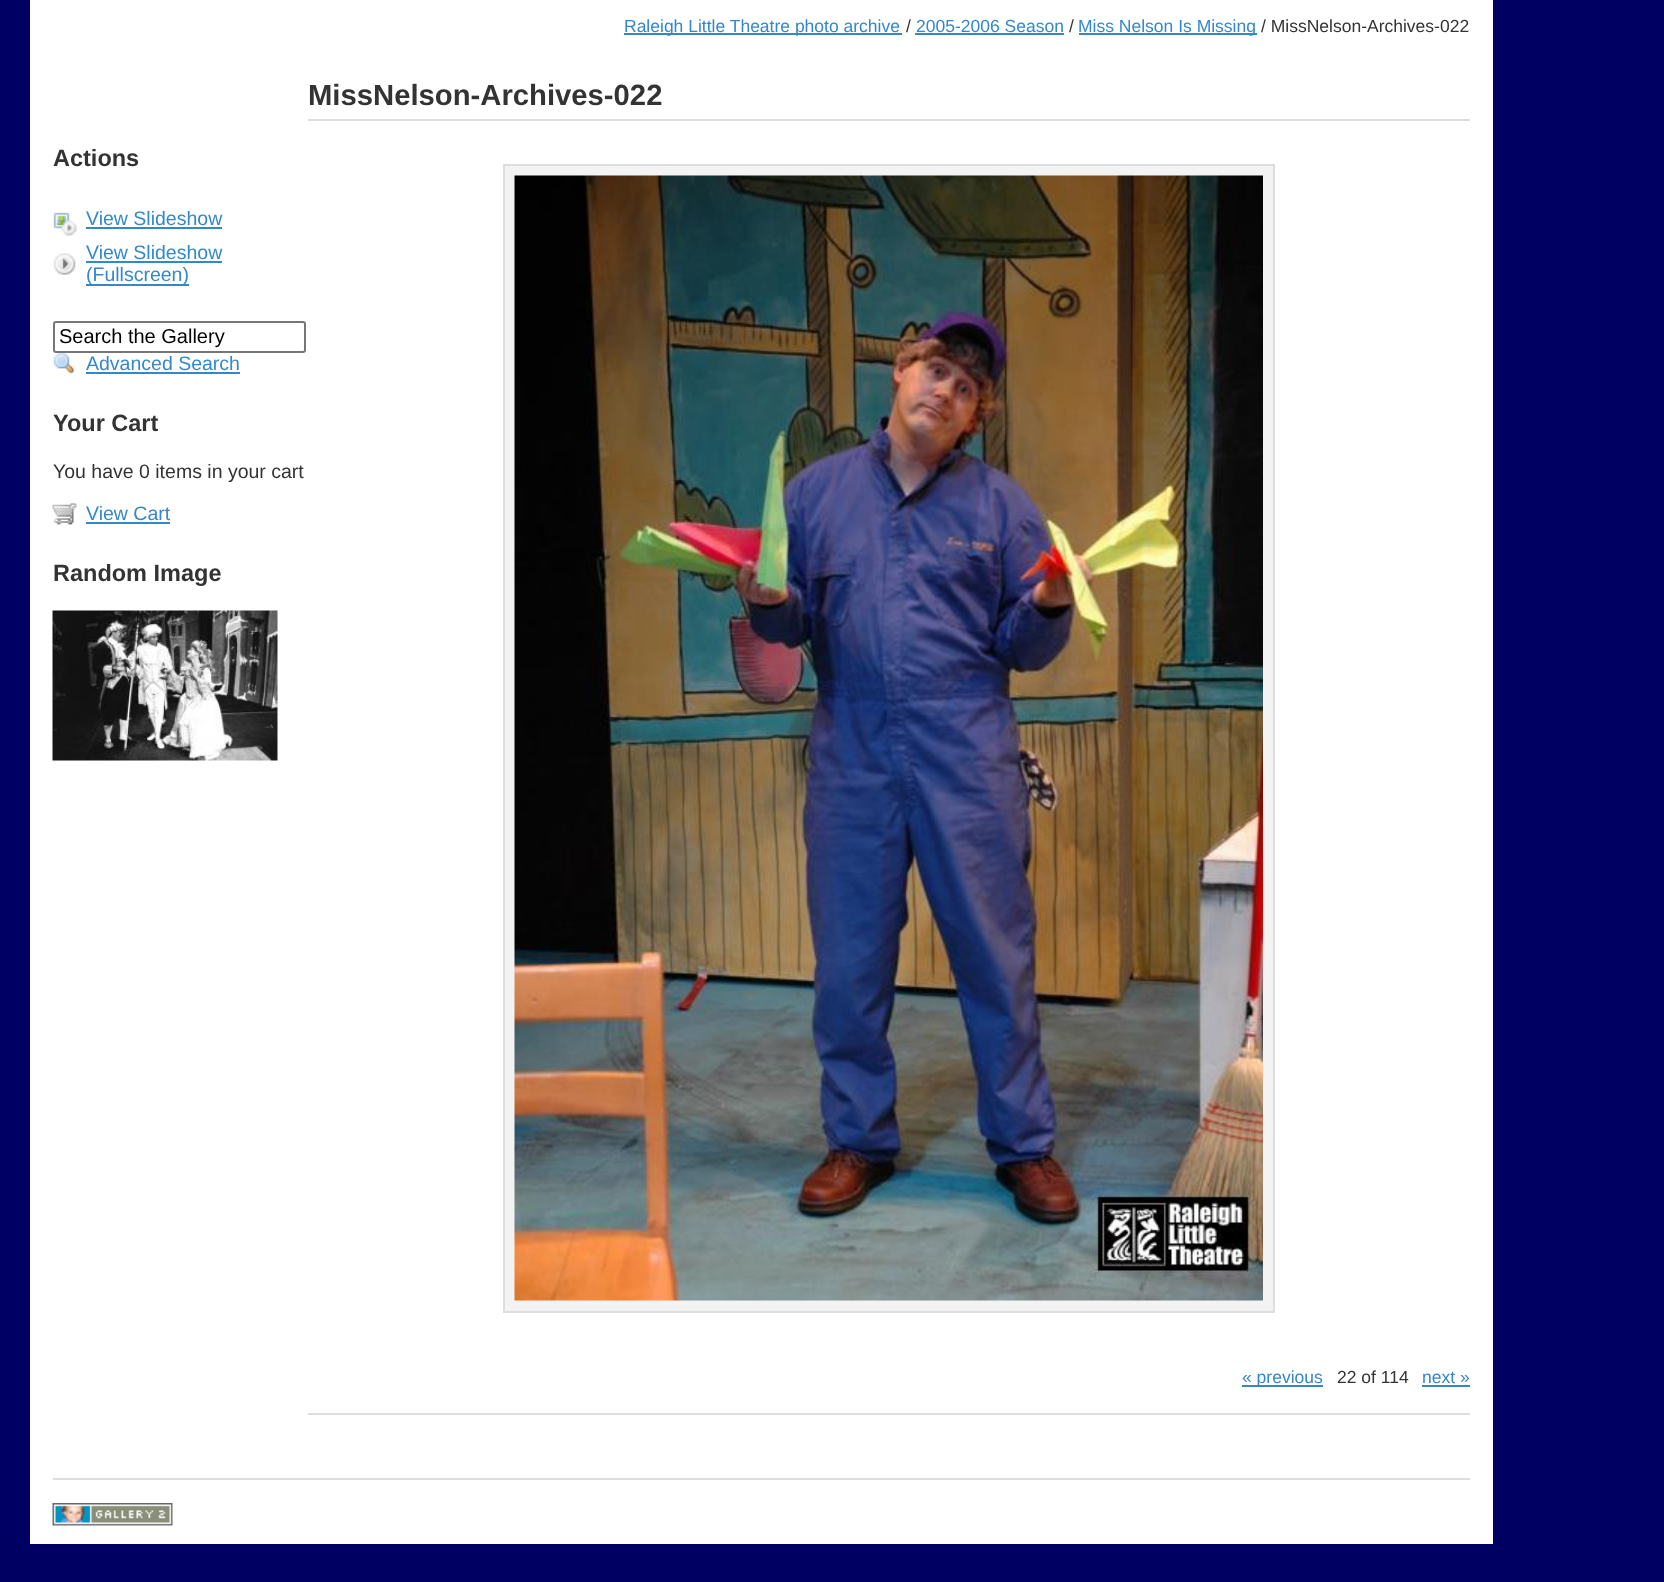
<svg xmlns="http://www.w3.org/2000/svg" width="1664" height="1582">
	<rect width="100%" height="100%" fill="#000063" />
	<rect x="30" y="0" width="1463" height="1544" fill="#FFFFFF" />
	<rect x="624" y="33" width="278" height="2" fill="#3388CC" />
	<text x="624" y="32" font-family="Liberation Sans" font-size="17.5" fill="#3388CC">Raleigh Little Theatre photo archive</text>
	<text x="906" y="32" font-family="Liberation Sans" font-size="17.5" fill="#333333">/</text>
	<text x="916" y="32" font-family="Liberation Sans" font-size="17.5" fill="#3388CC">2005-2006 Season</text>
	<rect x="915" y="33" width="149" height="2" fill="#3388CC" />
	<text x="1069" y="32" font-family="Liberation Sans" font-size="17.5" fill="#333333">/</text>
	<rect x="1079" y="33" width="178" height="2" fill="#3388CC" />
	<text x="1078" y="32" font-family="Liberation Sans" font-size="17.5" fill="#3388CC">Miss Nelson Is Missing</text>
	<text x="1261" y="32" font-family="Liberation Sans" font-size="17.5" fill="#333333">/ MissNelson-Archives-022</text>
	<text x="53" y="166" font-family="Liberation Sans" font-size="23.5" font-weight="700" fill="#333333">Actions</text>
	<image x="53" y="212" width="24" height="24" href="assets/img1.png" />
	<text x="86" y="225" font-family="Liberation Sans" font-size="19.5" fill="#3388CC">View Slideshow</text>
	<rect x="86" y="227" width="136" height="2" fill="#3388CC" />
	<image x="53" y="253" width="23" height="22" href="assets/img2.png" />
	<text x="86" y="259" font-family="Liberation Sans" font-size="19.5" fill="#3388CC">View Slideshow</text>
	<rect x="86" y="261" width="136" height="2" fill="#3388CC" />
	<rect x="86" y="284" width="103" height="2" fill="#3388CC" />
	<text x="86" y="281" font-family="Liberation Sans" font-size="19.5" fill="#3388CC">(Fullscreen)</text>
	<rect x="54" y="322" width="251" height="30" rx="2" fill="none" stroke="#767676" stroke-width="2" />
	<text x="59" y="343" font-family="Liberation Sans" font-size="20" fill="#000000">Search the Gallery</text>
	<image x="53" y="353" width="21" height="22" href="assets/img3.png" />
	<text x="86" y="370" font-family="Liberation Sans" font-size="19.5" fill="#3388CC">Advanced Search</text>
	<rect x="86" y="372" width="154" height="2" fill="#3388CC" />
	<text x="53" y="431" font-family="Liberation Sans" font-size="23.5" font-weight="700" fill="#333333">Your Cart</text>
	<text x="53" y="478" font-family="Liberation Sans" font-size="19.5" fill="#333333">You have 0 items in your cart</text>
	<image x="52" y="503" width="25" height="22" href="assets/img4.png" />
	<text x="86" y="520" font-family="Liberation Sans" font-size="19.5" fill="#3388CC">View Cart</text>
	<rect x="86" y="522" width="84" height="2" fill="#3388CC" />
	<text x="53" y="581" font-family="Liberation Sans" font-size="23.5" font-weight="700" fill="#333333">Random Image</text>
	<image x="52" y="610" width="226" height="151" href="assets/img5.png" />
	<rect x="308" y="119" width="1162" height="2" fill="#DDDDDD" />
	<text x="308" y="105" font-family="Liberation Sans" font-size="29.25" font-weight="700" fill="#333333">MissNelson-Archives-022</text>
	<rect x="504" y="165" width="770" height="1147" fill="#F3F3F3" stroke="#DDDDDD" stroke-width="2" />
	<image x="514" y="175" width="749" height="1126" href="assets/img6.png" />
	<rect x="1242" y="1385" width="81" height="2" fill="#3388CC" />
	<text x="1242" y="1383" font-family="Liberation Sans" font-size="17.5" fill="#3388CC">« previous</text>
	<text x="1337" y="1383" font-family="Liberation Sans" font-size="17.5" fill="#333333">22 of 114</text>
	<text x="1422" y="1383" font-family="Liberation Sans" font-size="17.5" fill="#3388CC">next »</text>
	<rect x="1422" y="1385" width="48" height="2" fill="#3388CC" />
	<rect x="308" y="1413" width="1162" height="2" fill="#DDDDDD" />
	<rect x="53" y="1478" width="1417" height="2" fill="#DDDDDD" />
	<image x="52" y="1503" width="121" height="23" href="assets/img7.png" />
</svg>
